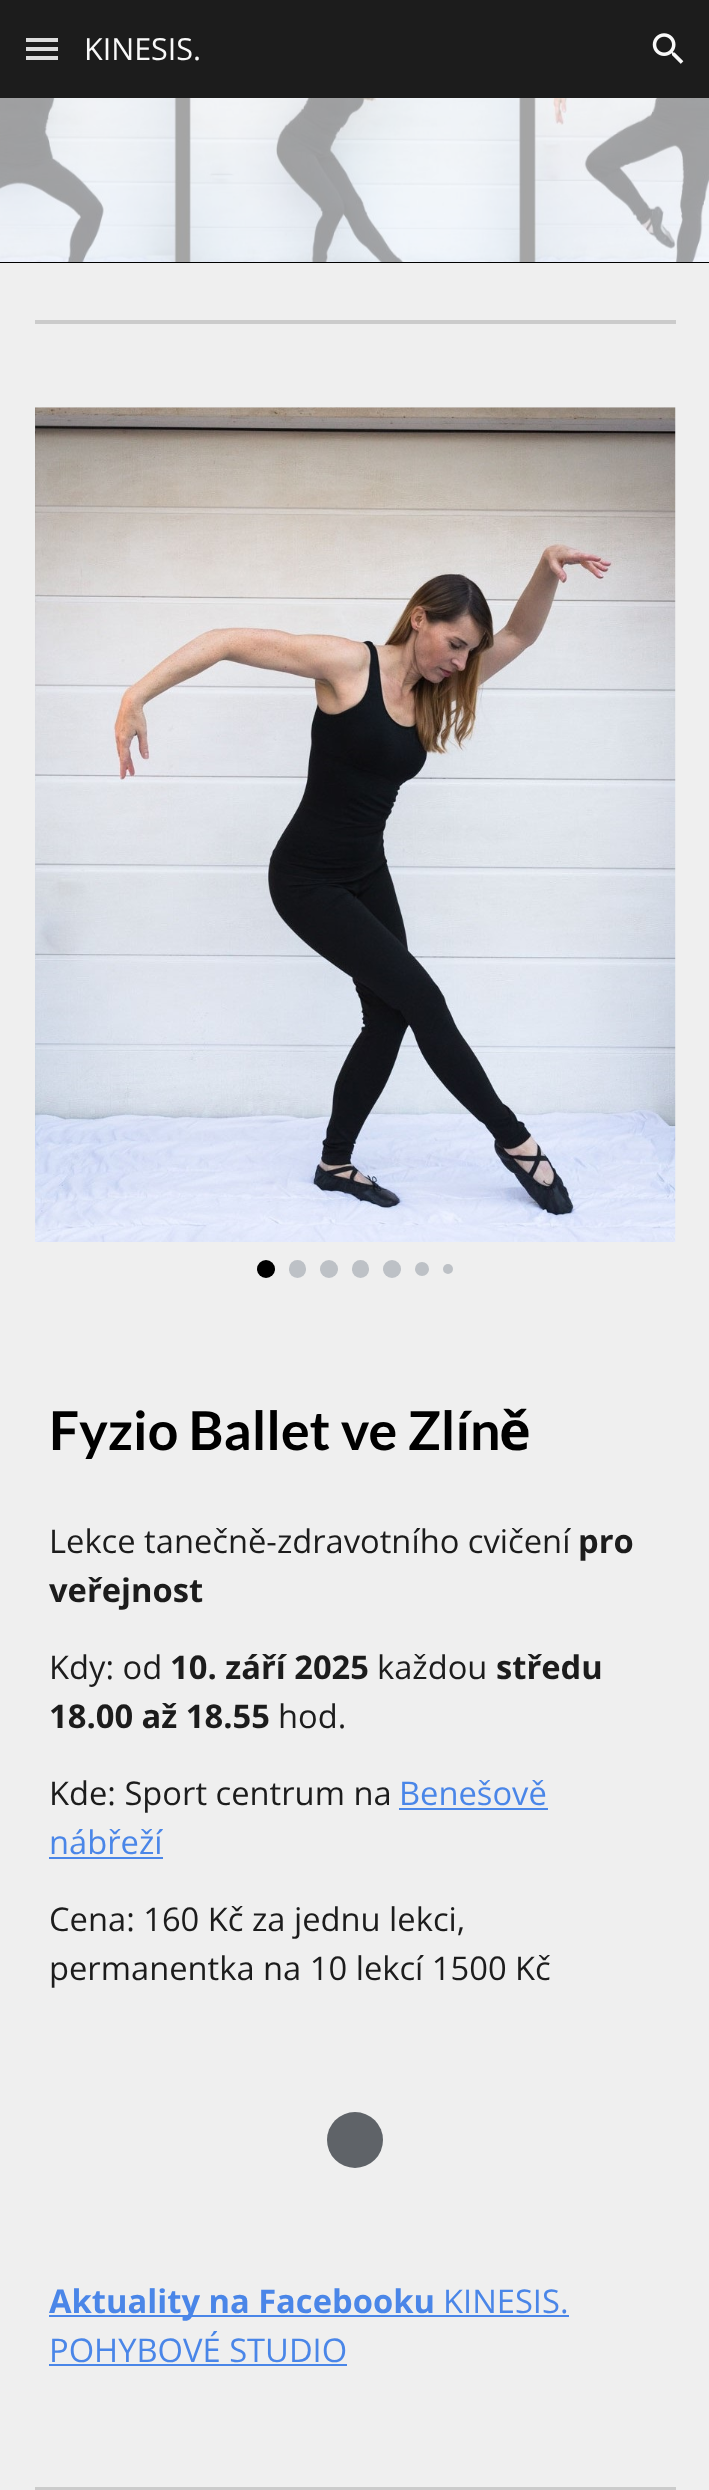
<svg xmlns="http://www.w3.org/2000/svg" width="709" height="2490">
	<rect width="100%" height="100%" fill="#EFEFEF" />
	<rect x="0" y="0" width="709" height="98" fill="#1C1C1C" />
	<rect x="26" y="38" width="32" height="4" fill="#DDDDDD" />
	<rect x="26" y="47" width="32" height="4" fill="#DDDDDD" />
	<rect x="26" y="56" width="32" height="4" fill="#DDDDDD" />
	<text x="84" y="60" font-family="Open Sans" font-size="30.5" fill="#F9F9F9">KINESIS.</text>
	<image x="652" y="33" width="32" height="31" href="assets/img1.png" />
	<image x="0" y="98" width="709" height="164" href="assets/img2.png" />
	<rect x="0" y="262" width="709" height="1" fill="#000000" />
	<rect x="35" y="320" width="641" height="4" fill="#CBCBCB" />
	<image x="35" y="407" width="641" height="835" href="assets/img3.png" />
	<circle cx="266" cy="1269" r="9" fill="#000000" />
	<rect x="289" y="1260" width="17" height="18" rx="8.5" fill="#BDC1C6" />
	<circle cx="329" cy="1269" r="9" fill="#BDC1C6" />
	<rect x="352" y="1260" width="17" height="18" rx="8.5" fill="#BDC1C6" />
	<circle cx="392" cy="1269" r="9" fill="#BDC1C6" />
	<circle cx="422" cy="1269" r="7" fill="#BDC1C6" />
	<circle cx="448" cy="1269" r="5" fill="#BDC1C6" />
	<text x="49" y="1450" font-family="Lato" font-size="53.75" font-weight="700" fill="#000000">Fyzio Ballet ve Zlín</text>
	<text x="499" y="1450" font-family="Open Sans" font-size="53.75" font-weight="700" fill="#000000">ě</text>
	<text x="49" y="1553" font-family="Open Sans" font-size="32.7" fill="#1C1C1C">Lekce tanečně-zdravotního cvičení</text>
	<g font-family="Open Sans" font-size="32.7" font-weight="700" fill="#1C1C1C">
		<text x="578" y="1553">pro</text>
		<text x="49" y="1602">veřejnost</text>
	</g>
	<text x="49" y="1679" font-family="Open Sans" font-size="32.7" fill="#1C1C1C">Kdy: od</text>
	<text x="170" y="1679" font-family="Open Sans" font-size="32.7" font-weight="700" fill="#1C1C1C">10. září 2025</text>
	<text x="377" y="1679" font-family="Open Sans" font-size="32.7" fill="#1C1C1C">každou</text>
	<g font-family="Open Sans" font-size="32.7" font-weight="700" fill="#1C1C1C">
		<text x="496" y="1679">středu</text>
		<text x="49" y="1728">18.00 až 18.55</text>
	</g>
	<g font-family="Open Sans" font-size="32.7" fill="#1C1C1C">
		<text x="278" y="1728">hod.</text>
		<text x="49" y="1805">Kde: Sport centrum na</text>
	</g>
	<text x="399" y="1805" font-family="Open Sans" font-size="32.7" fill="#4A86E8">Benešově</text>
	<rect x="399" y="1808" width="149" height="2" fill="#4A86E8" />
	<text x="49" y="1854" font-family="Open Sans" font-size="32.7" fill="#4A86E8">nábřeží</text>
	<rect x="49" y="1857" width="114" height="2" fill="#4A86E8" />
	<g font-family="Open Sans" font-size="32.7" fill="#1C1C1C">
		<text x="49" y="1931">Cena: 160 Kč za jednu lekci,</text>
		<text x="49" y="1980">permanentka na 10 lekcí 1500 Kč</text>
	</g>
	<circle cx="355" cy="2140" r="28" fill="#5F6368" />
	<rect x="49" y="2315" width="520" height="2" fill="#4A86E8" />
	<text x="49" y="2313" font-family="Open Sans" font-size="32.7" font-weight="700" fill="#4A86E8">Aktuality na Facebooku</text>
	<g font-family="Open Sans" font-size="32.7" fill="#4A86E8">
		<text x="443" y="2313">KINESIS.</text>
		<text x="49" y="2362">POHYBOVÉ STUDIO</text>
	</g>
	<rect x="49" y="2364" width="298" height="2" fill="#4A86E8" />
	<rect x="35" y="2487" width="641" height="3" fill="#CBCBCB" />
</svg>
